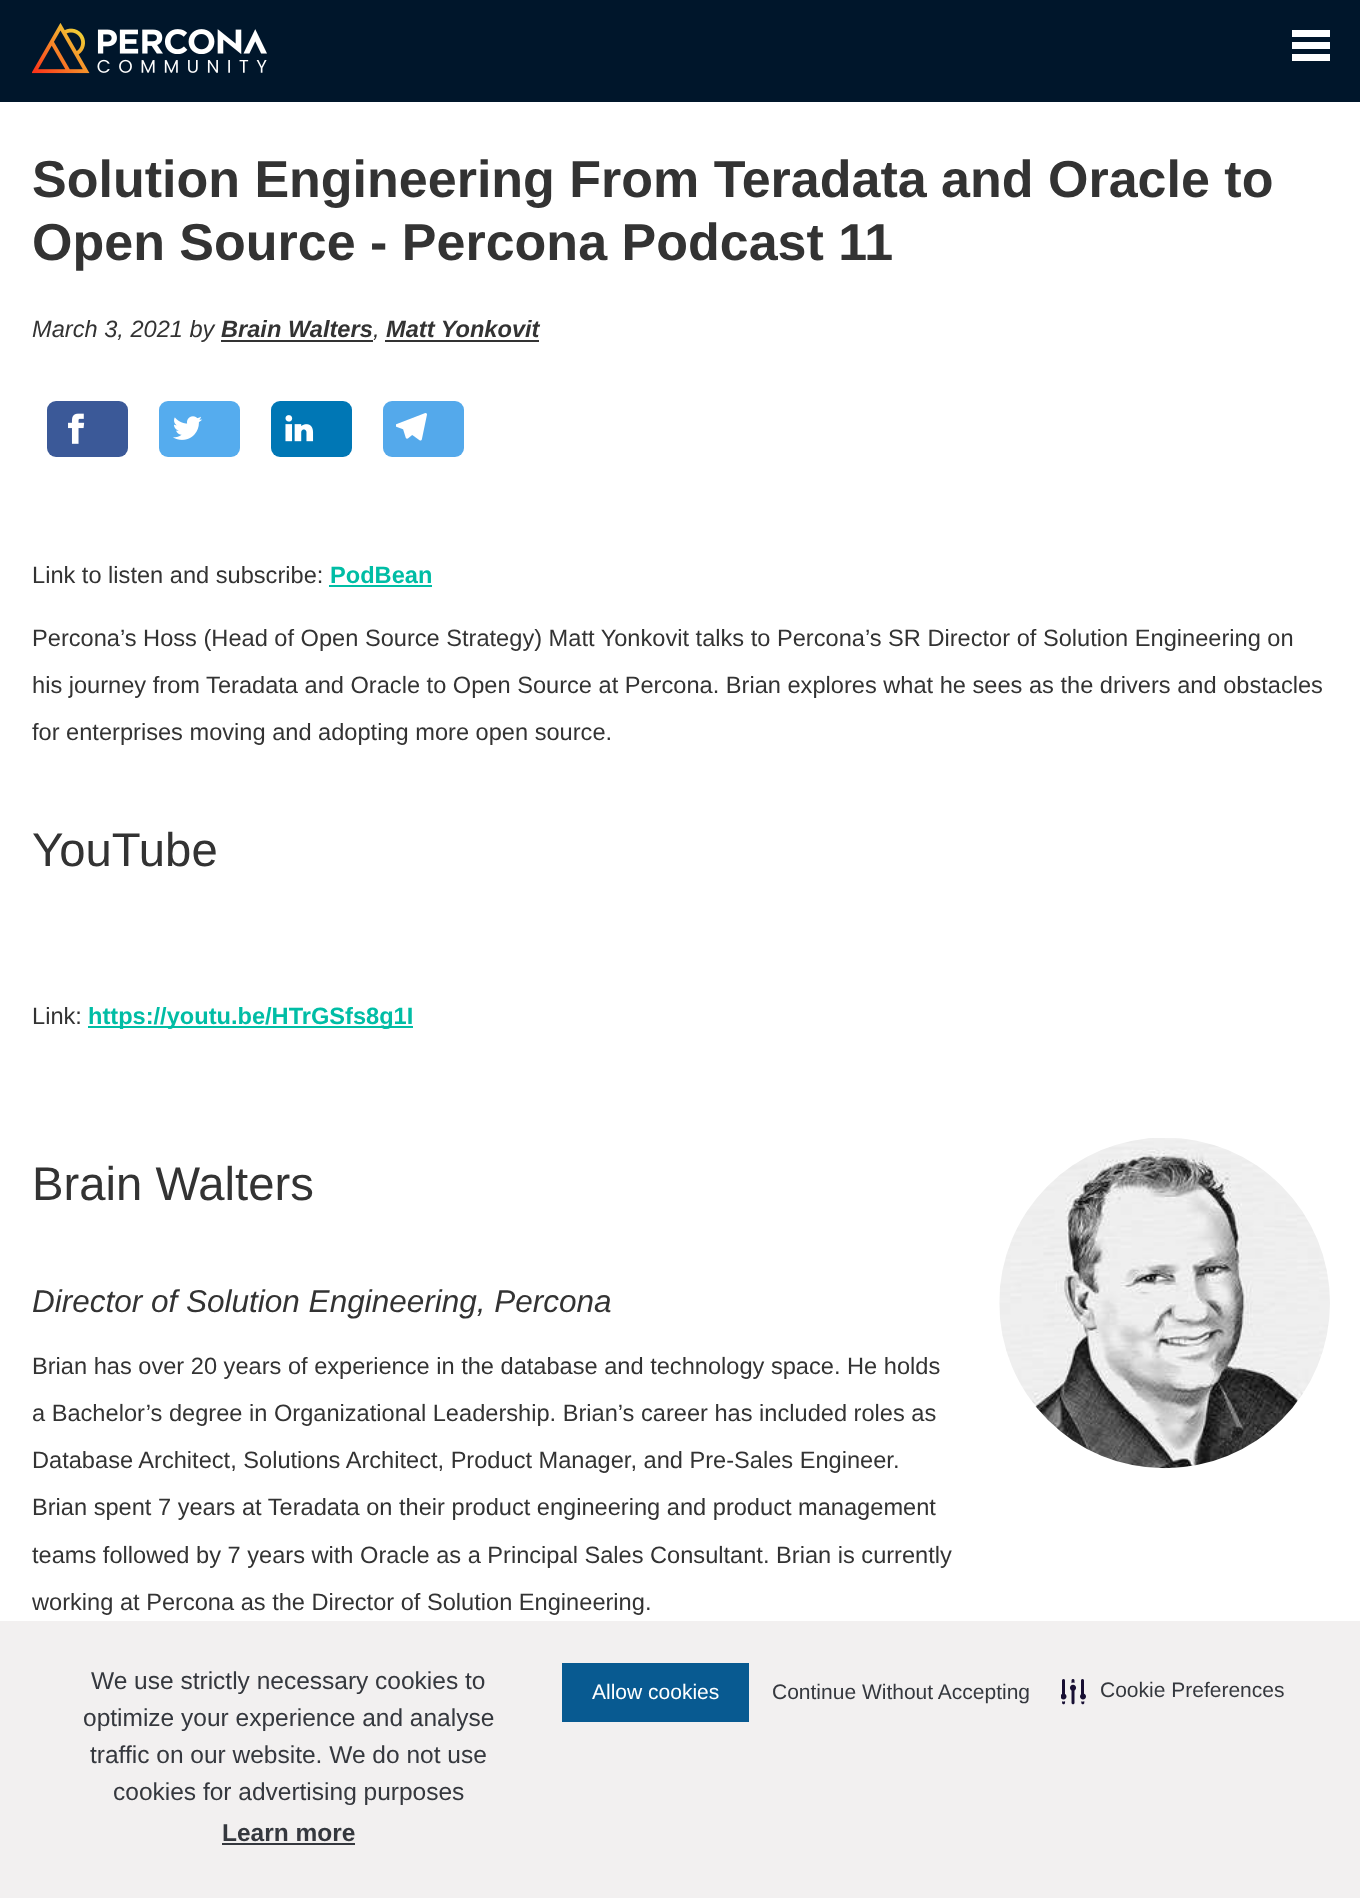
<svg xmlns="http://www.w3.org/2000/svg" width="1360" height="1898">
	<rect width="100%" height="100%" fill="#FFFFFF" />
	<rect x="0" y="0" width="1360" height="102" fill="#00162B" />
	<image x="32" y="23" width="235" height="51" href="assets/img1.png" />
	<rect x="1292" y="30" width="38" height="7" fill="#FFFFFF" />
	<rect x="1292" y="42" width="38" height="7" fill="#FFFFFF" />
	<rect x="1292" y="54" width="38" height="7" fill="#FFFFFF" />
	<g font-family="Liberation Sans" font-size="52" font-weight="700" fill="#333333">
		<text x="32" y="197">Solution Engineering From Teradata and Oracle to</text>
		<text x="32" y="260">Open Source - Percona Podcast 11</text>
	</g>
	<text x="32" y="337" font-family="Liberation Sans" font-size="23.62" font-style="italic" fill="#333333">March 3, 2021 by</text>
	<text x="221" y="337" font-family="Liberation Sans" font-size="23.62" font-weight="700" font-style="italic" fill="#333333">Brain Walters</text>
	<text x="373" y="337" font-family="Liberation Sans" font-size="23.62" font-style="italic" fill="#333333">,</text>
	<rect x="221" y="340" width="152" height="2" fill="#333333" />
	<rect x="385" y="340" width="154" height="2" fill="#333333" />
	<text x="386" y="337" font-family="Liberation Sans" font-size="23.62" font-weight="700" font-style="italic" fill="#333333">Matt Yonkovit</text>
	<rect x="47" y="401" width="81" height="56" rx="9" fill="#3B5998" />
	<image x="68" y="413" width="17" height="31" href="assets/img2.png" />
	<rect x="159" y="401" width="81" height="56" rx="9" fill="#55ACEE" />
	<image x="173" y="416" width="30" height="24" href="assets/img3.png" />
	<rect x="271" y="401" width="81" height="56" rx="9" fill="#0077B5" />
	<image x="285" y="415" width="29" height="27" href="assets/img4.png" />
	<rect x="383" y="401" width="81" height="56" rx="9" fill="#54A9EB" />
	<image x="396" y="413" width="31" height="28" href="assets/img5.png" />
	<text x="32" y="583" font-family="Liberation Sans" font-size="23.62" fill="#333333">Link to listen and subscribe:</text>
	<text x="330" y="583" font-family="Liberation Sans" font-size="23.62" font-weight="700" fill="#00BDA5">PodBean</text>
	<rect x="329" y="585" width="103" height="2" fill="#00BDA5" />
	<g font-family="Liberation Sans" font-size="23.62" fill="#333333">
		<text x="32" y="646">Percona’s Hoss (Head of Open Source Strategy) Matt Yonkovit talks to Percona’s SR Director of Solution Engineering on</text>
		<text x="32" y="693">his journey from Teradata and Oracle to Open Source at Percona. Brian explores what he sees as the drivers and obstacles</text>
		<text x="32" y="740">for enterprises moving and adopting more open source.</text>
	</g>
	<text x="32" y="866" font-family="Liberation Sans" font-size="47.25" fill="#333333">YouTube</text>
	<text x="32" y="1024" font-family="Liberation Sans" font-size="23.62" fill="#333333">Link:</text>
	<rect x="88" y="1026" width="325" height="2" fill="#00BDA5" />
	<text x="88" y="1024" font-family="Liberation Sans" font-size="23.62" font-weight="700" fill="#00BDA5">https://youtu.be/HTrGSfs8g1I</text>
	<text x="32" y="1200" font-family="Liberation Sans" font-size="47.25" fill="#333333">Brain Walters</text>
	<text x="32" y="1312" font-family="Liberation Sans" font-size="31.5" font-style="italic" fill="#333333">Director of Solution Engineering, Percona</text>
	<g font-family="Liberation Sans" font-size="23.62" fill="#333333">
		<text x="32" y="1374">Brian has over 20 years of experience in the database and technology space. He holds</text>
		<text x="32" y="1421">a Bachelor’s degree in Organizational Leadership. Brian’s career has included roles as</text>
		<text x="32" y="1468">Database Architect, Solutions Architect, Product Manager, and Pre-Sales Engineer.</text>
		<text x="32" y="1515">Brian spent 7 years at Teradata on their product engineering and product management</text>
		<text x="32" y="1563">teams followed by 7 years with Oracle as a Principal Sales Consultant. Brian is currently</text>
		<text x="32" y="1610">working at Percona as the Director of Solution Engineering.</text>
	</g>
	<image x="999" y="1138" width="331" height="331" href="assets/img6.png" />
	<rect x="0" y="1621" width="1360" height="277" fill="#F2F0F0" />
	<g font-family="Liberation Sans" font-size="24.5" fill="#35383E">
		<text x="91" y="1689">We use strictly necessary cookies to</text>
		<text x="83" y="1726">optimize your experience and analyse</text>
		<text x="90" y="1763">traffic on our website. We do not use</text>
		<text x="113" y="1800">cookies for advertising purposes</text>
	</g>
	<text x="222" y="1841" font-family="Liberation Sans" font-size="24.5" font-weight="700" fill="#35383E">Learn more</text>
	<rect x="222" y="1843" width="133" height="2" fill="#35383E" />
	<rect x="562" y="1663" width="187" height="59" fill="#085A91" />
	<text x="592" y="1699" font-family="Liberation Sans" font-size="21" fill="#FFFFFF">Allow cookies</text>
	<text x="772" y="1699" font-family="Liberation Sans" font-size="21" fill="#35383E">Continue Without Accepting</text>
	<image x="1061" y="1679" width="25" height="26" href="assets/img7.png" />
	<text x="1100" y="1697" font-family="Liberation Sans" font-size="21" fill="#35383E">Cookie Preferences</text>
</svg>
